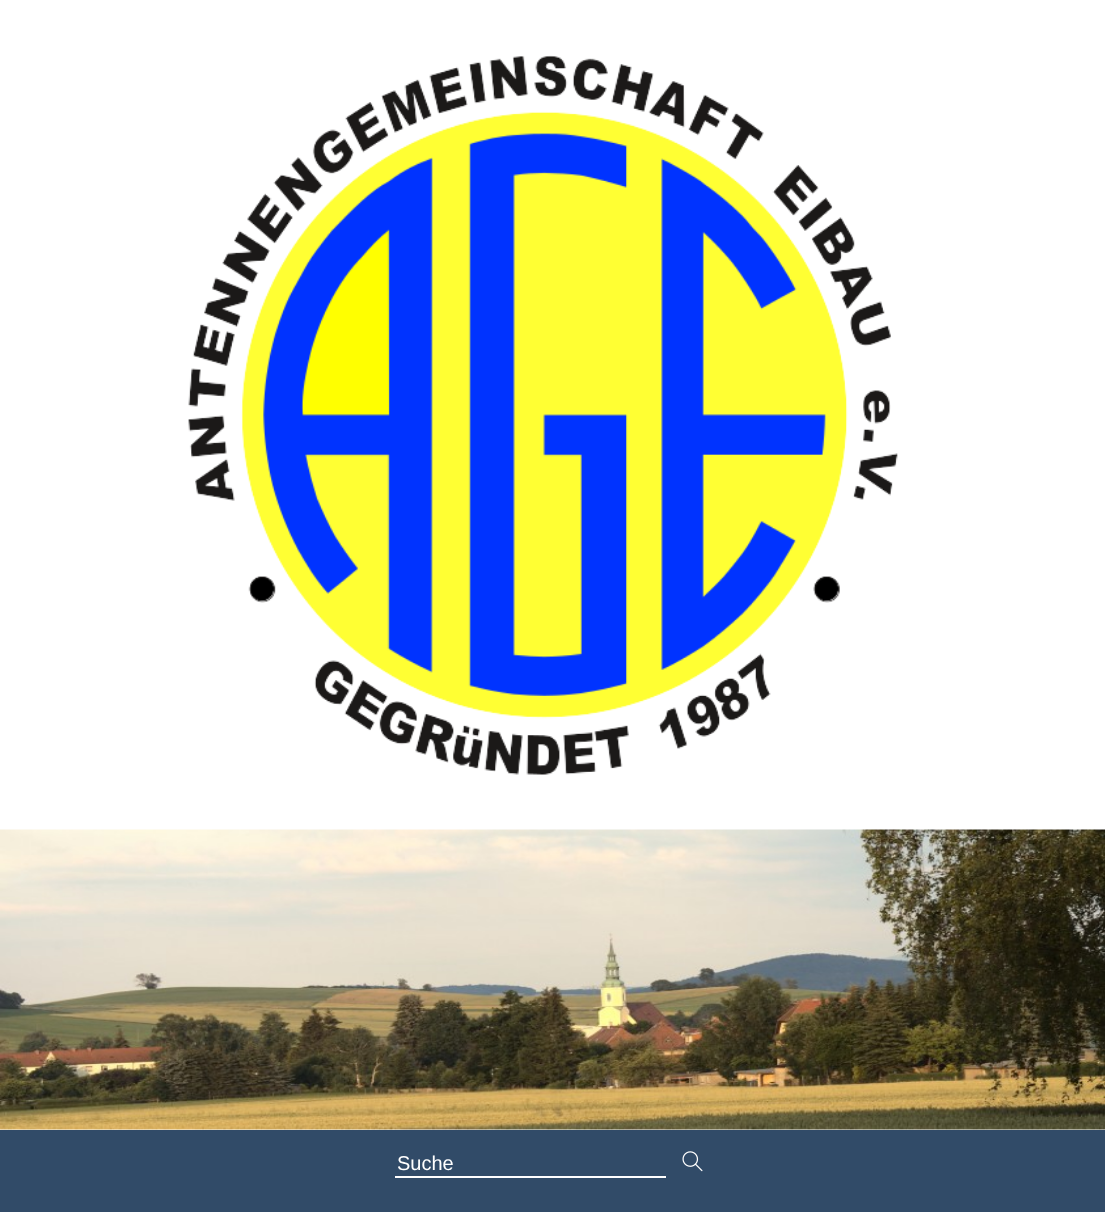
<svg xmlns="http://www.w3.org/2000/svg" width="1105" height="1212">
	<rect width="100%" height="100%" fill="#FFFFFF" />
	<image x="188" y="55" width="710" height="720" href="assets/img1.png" />
	<image x="0" y="829" width="1105" height="301" href="assets/img2.png" />
	<rect x="0" y="1130" width="1105" height="82" fill="#314B68" />
	<rect x="395" y="1176" width="271" height="2" fill="#FFFFFF" />
	<text x="397" y="1170" font-family="Liberation Sans" font-size="20" fill="#FFFFFF">Suche</text>
	<image x="682" y="1151" width="21" height="21" href="assets/img3.png" />
</svg>
